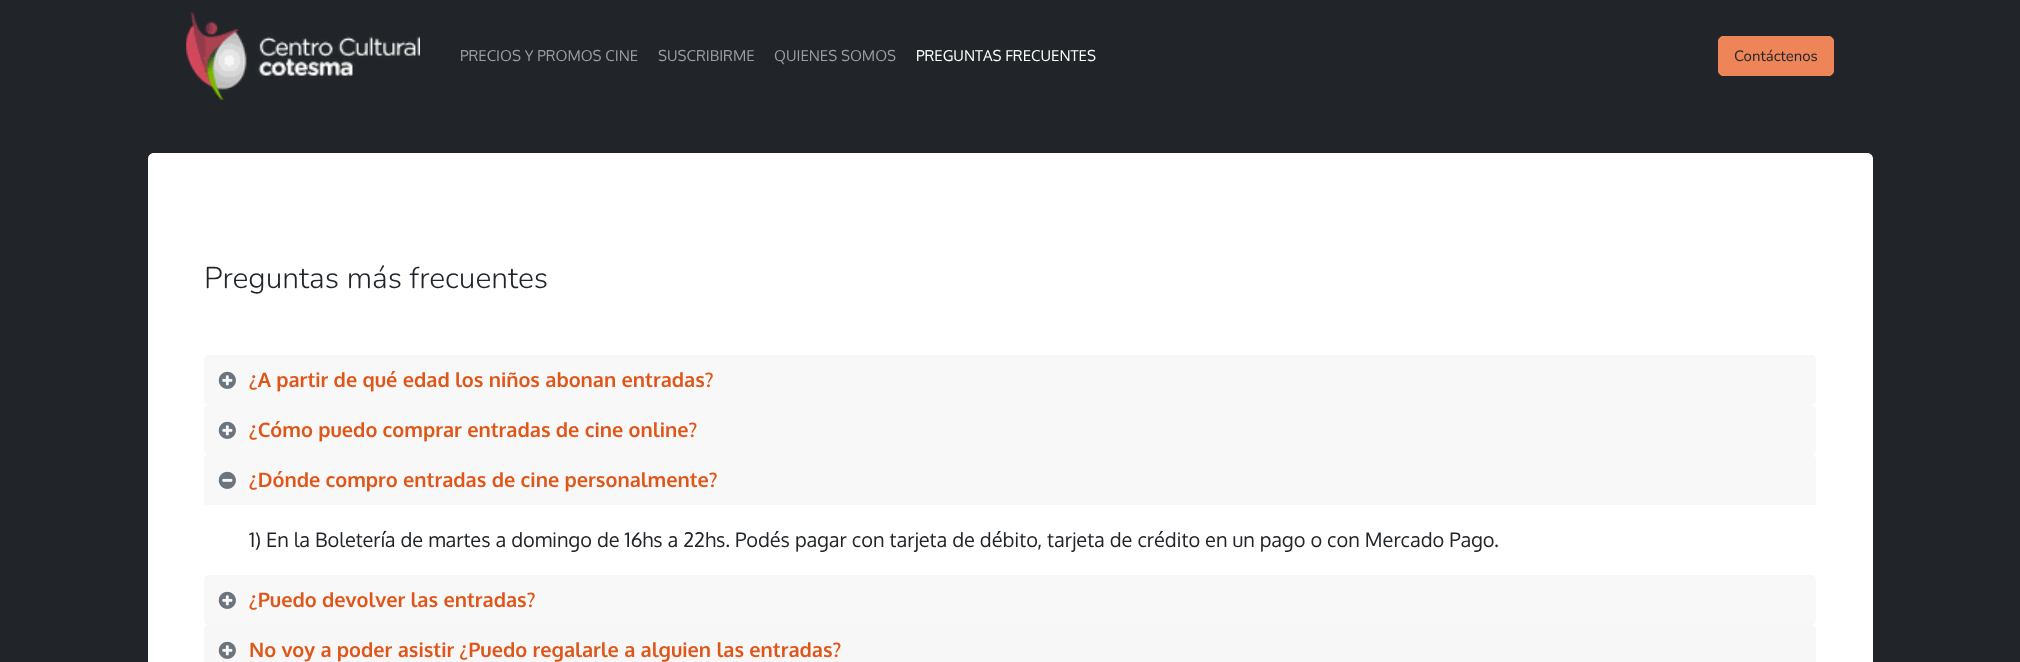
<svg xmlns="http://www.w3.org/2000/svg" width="2020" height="662">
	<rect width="100%" height="100%" fill="#212529" />
	<image x="186" y="12" width="234" height="88" href="assets/img1.png" />
	<g font-family="Oxygen" font-size="15" fill="#9C9DA0">
		<text x="460" y="61">PRECIOS Y PROMOS CINE</text>
		<text x="658" y="61">SUSCRIBIRME</text>
		<text x="774" y="61">QUIENES SOMOS</text>
	</g>
	<text x="916" y="61" font-family="Oxygen" font-size="15" fill="#FFFFFF">PREGUNTAS FRECUENTES</text>
	<rect x="1718.5" y="36.5" width="115" height="39" rx="4.5" fill="#ED8558" stroke="#ED8558" />
	<text x="1734" y="61" font-family="Nunito" font-size="15" fill="#212529">Contáctenos</text>
	<path d="M154 153H1867C1870.5 153 1873 155.5 1873 159V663H148V159C148 155.5 150.5 153 154 153Z" fill="#FFFFFF" />
	<text x="204" y="288" font-family="Nunito" font-size="30" font-weight="300" fill="#212529">Preguntas más frecuentes</text>
	<rect x="204" y="355" width="1612" height="50" rx="5" fill="#F8F8F8" />
	<image x="218" y="371" width="18" height="18" href="assets/img2.png" />
	<text x="249" y="387" font-family="Oxygen" font-size="20" font-weight="700" fill="#E05518">¿A partir de qué edad los niños abonan entradas?</text>
	<rect x="204" y="405" width="1612" height="50" rx="5" fill="#F8F8F8" />
	<image x="218" y="421" width="18" height="18" href="assets/img2.png" />
	<text x="249" y="437" font-family="Oxygen" font-size="20" font-weight="700" fill="#E05518">¿Cómo puedo comprar entradas de cine online?</text>
	<path d="M209 455H1811C1814 455 1816 457 1816 460V505H204V460C204 457 206 455 209 455Z" fill="#F8F8F8" />
	<image x="218" y="471" width="18" height="18" href="assets/img3.png" />
	<text x="249" y="487" font-family="Oxygen" font-size="20" font-weight="700" fill="#E05518">¿Dónde compro entradas de cine personalmente?</text>
	<text x="249" y="547" font-family="Oxygen" font-size="20" fill="#212529">1) En la Boletería de martes a domingo de 16hs a 22hs. Podés pagar con tarjeta de débito, tarjeta de crédito en un pago o con Mercado Pago.</text>
	<rect x="204" y="575" width="1612" height="50" rx="5" fill="#F8F8F8" />
	<image x="218" y="591" width="18" height="18" href="assets/img2.png" />
	<text x="249" y="607" font-family="Oxygen" font-size="20" font-weight="700" fill="#E05518">¿Puedo devolver las entradas?</text>
	<path d="M209 625H1811C1814 625 1816 627 1816 630V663H204V630C204 627 206 625 209 625Z" fill="#F7F7F7" />
	<image x="218" y="641" width="18" height="18" href="assets/img4.png" />
	<text x="249" y="657" font-family="Oxygen" font-size="20" font-weight="700" fill="#E05518">No voy a poder asistir ¿Puedo regalarle a alguien las entradas?</text>
</svg>
